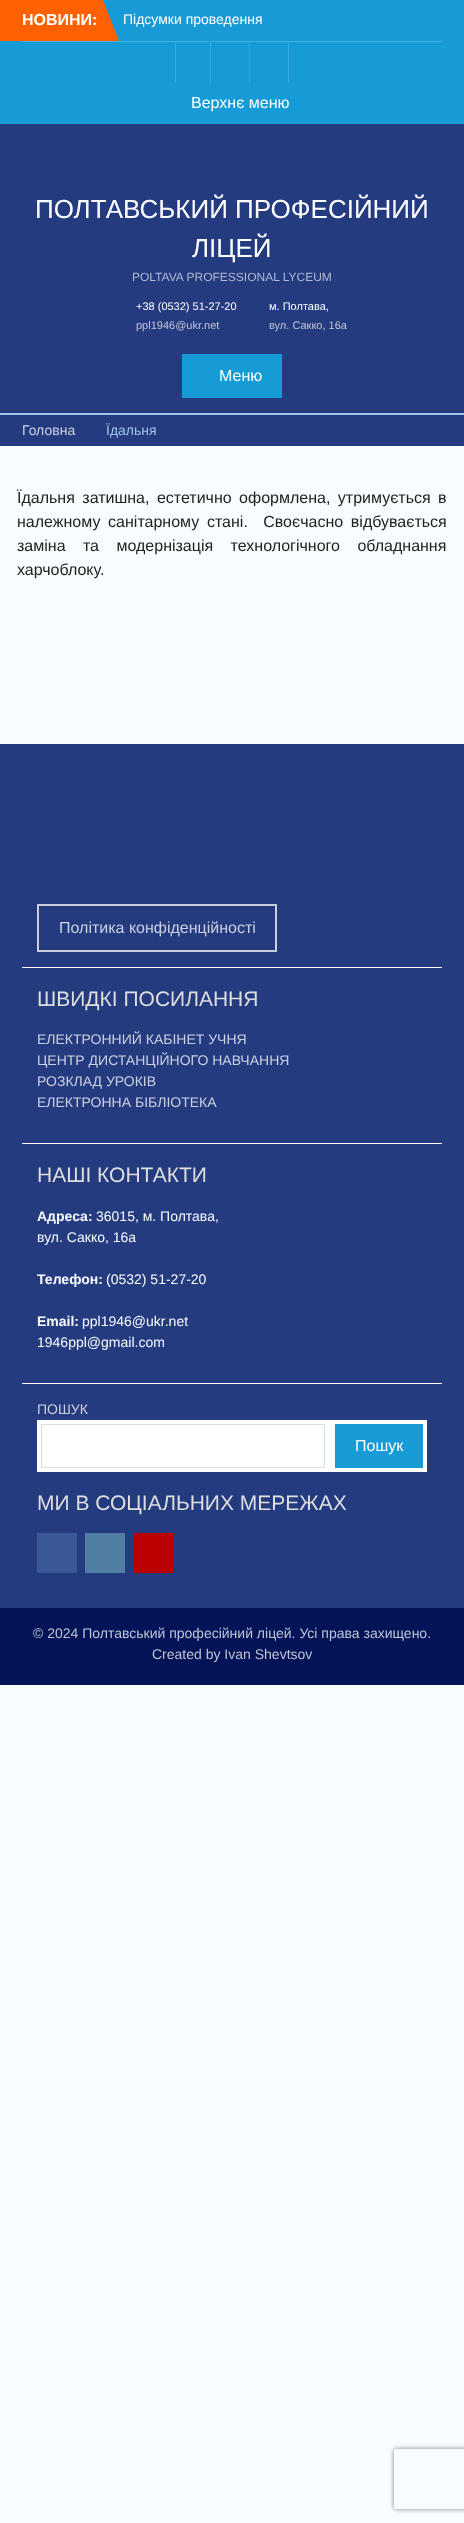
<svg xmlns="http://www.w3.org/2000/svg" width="464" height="2523">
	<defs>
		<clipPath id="clip1"><path d="M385 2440H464V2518H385ZM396 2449H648C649 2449 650 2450 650 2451V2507C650 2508 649 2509 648 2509H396C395 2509 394 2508 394 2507V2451C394 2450 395 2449 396 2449Z" clip-rule="evenodd" /></clipPath>
	</defs>
	<rect width="100%" height="100%" fill="#F7FCFE" />
	<rect x="0" y="0" width="464" height="124" fill="#179BD7" />
	<rect x="0" y="0" width="103" height="41" fill="#FF6000" />
	<text x="22" y="25" font-family="Liberation Sans" font-size="16" font-weight="700" fill="#FFFFFF">НОВИНИ:</text>
	<path d="M103 41V0L119 41Z" fill="#FF6000" />
	<text x="123" y="24" font-family="Liberation Sans" font-size="14" fill="#FFFFFF">Підсумки проведення</text>
	<rect x="22" y="41" width="420" height="1" fill="#45AFDF" />
	<rect x="210" y="42" width="1" height="41" fill="#3AAADD" />
	<rect x="175" y="42" width="1" height="41" fill="#3AAADD" />
	<rect x="249" y="42" width="1" height="41" fill="#3AAADD" />
	<rect x="288" y="42" width="1" height="41" fill="#3AAADD" />
	<text x="191" y="108" font-family="Liberation Sans" font-size="16" fill="#FFFFFF">Верхнє меню</text>
	<rect x="0" y="124" width="464" height="289" fill="#253B80" />
	<g font-family="Liberation Sans" font-size="26" fill="#FFFFFF">
		<text x="35" y="218">ПОЛТАВСЬКИЙ ПРОФЕСІЙНИЙ</text>
		<text x="192" y="257">ЛІЦЕЙ</text>
	</g>
	<text x="132" y="281" font-family="Liberation Sans" font-size="12" fill="#B1B8D1">POLTAVA PROFESSIONAL LYCEUM</text>
	<text x="136" y="310" font-family="Liberation Sans" font-size="11" fill="#FFFFFF">+38 (0532) 51-27-20</text>
	<text x="136" y="329" font-family="Liberation Sans" font-size="11" fill="#C0C4D5">ppl1946@ukr.net</text>
	<text x="269" y="310" font-family="Liberation Sans" font-size="11" fill="#FFFFFF">м. Полтава,</text>
	<text x="269" y="329" font-family="Liberation Sans" font-size="11" fill="#C0C4D5">вул. Сакко, 16а</text>
	<rect x="182" y="354" width="100" height="44" fill="#179BD7" />
	<text x="219" y="381" font-family="Liberation Sans" font-size="16" fill="#FFFFFF">Меню</text>
	<rect x="0" y="415" width="464" height="31" fill="#253B80" />
	<rect x="0" y="413" width="464" height="2" fill="#A0C5E8" />
	<text x="22" y="435" font-family="Liberation Sans" font-size="14" fill="#CBD0E1">Головна</text>
	<text x="106" y="435" font-family="Liberation Sans" font-size="14" fill="#A0C5E8">Їдальня</text>
	<g font-family="Liberation Sans" font-size="16" fill="#222222">
		<text x="17" y="503" word-spacing="3">Їдальня затишна, естетично оформлена, утримується в</text>
		<text x="17" y="527" word-spacing="3.25" xml:space="preserve">належному санітарному стані.  Своєчасно відбувається</text>
		<text x="17" y="551" word-spacing="13">заміна та модернізація технологічного обладнання</text>
		<text x="17" y="575">харчоблоку.</text>
	</g>
	<rect x="0" y="744" width="464" height="864" fill="#253B80" />
	<rect x="38" y="905" width="238" height="46" fill="none" stroke="#C9CEDF" stroke-width="2" />
	<text x="59" y="933" font-family="Liberation Sans" font-size="16" fill="#CBD0E1">Політика конфіденційності</text>
	<rect x="22" y="967" width="420" height="1" fill="#FFFFFF" />
	<text x="37" y="1006" font-family="Liberation Sans" font-size="21" fill="#DDDDDD">ШВИДКІ ПОСИЛАННЯ</text>
	<g font-family="Liberation Sans" font-size="14" fill="#CBD0E1">
		<text x="37" y="1044">ЕЛЕКТРОННИЙ КАБІНЕТ УЧНЯ</text>
		<text x="37" y="1065">ЦЕНТР ДИСТАНЦІЙНОГО НАВЧАННЯ</text>
		<text x="37" y="1086">РОЗКЛАД УРОКІВ</text>
		<text x="37" y="1107">ЕЛЕКТРОННА БІБЛІОТЕКА</text>
	</g>
	<rect x="22" y="1143" width="420" height="1" fill="#FFFFFF" />
	<text x="37" y="1182" font-family="Liberation Sans" font-size="21" fill="#DDDDDD">НАШІ КОНТАКТИ</text>
	<text x="37" y="1221" font-family="Liberation Sans" font-size="14" font-weight="700" fill="#F7FCFE">Адреса:</text>
	<g font-family="Liberation Sans" font-size="14" fill="#F7FCFE">
		<text x="96" y="1221">36015, м. Полтава,</text>
		<text x="37" y="1242">вул. Сакко, 16а</text>
	</g>
	<text x="37" y="1284" font-family="Liberation Sans" font-size="14" font-weight="700" fill="#F7FCFE">Телефон:</text>
	<text x="106" y="1284" font-family="Liberation Sans" font-size="14" fill="#F7FCFE">(0532) 51-27-20</text>
	<text x="37" y="1326" font-family="Liberation Sans" font-size="14" font-weight="700" fill="#F7FCFE">Email:</text>
	<g font-family="Liberation Sans" font-size="14" fill="#F7FCFE">
		<text x="82" y="1326">ppl1946@ukr.net</text>
		<text x="37" y="1347">1946ppl@gmail.com</text>
	</g>
	<rect x="22" y="1383" width="420" height="1" fill="#FFFFFF" />
	<text x="37" y="1414" font-family="Liberation Sans" font-size="14" fill="#CBD0E1">ПОШУК</text>
	<rect x="37" y="1420" width="390" height="52" fill="#FFFFFF" />
	<rect x="41.5" y="1424.5" width="283" height="43" fill="none" stroke="#DDDDDD" />
	<rect x="335" y="1424" width="88" height="44" fill="#179BD7" />
	<text x="355" y="1451" font-family="Liberation Sans" font-size="16" fill="#FFFFFF">Пошук</text>
	<text x="37" y="1510" font-family="Liberation Sans" font-size="21" fill="#DDDDDD">МИ В СОЦІАЛЬНИХ МЕРЕЖАХ</text>
	<rect x="37" y="1533" width="40" height="40" fill="#3B5998" />
	<rect x="85" y="1533" width="40" height="40" fill="#517FA4" />
	<rect x="134" y="1533" width="40" height="40" fill="#BB0000" />
	<rect x="0" y="1608" width="464" height="77" fill="#031358" />
	<g font-family="Liberation Sans" font-size="14" fill="#C0C4D5">
		<text x="33" y="1638">© 2024 Полтавський професійний ліцей. Усі права захищено.</text>
		<text x="152" y="1659">Created by Ivan Shevtsov</text>
	</g>
	<g clip-path="url(#clip1)">
		<rect x="394" y="2449" width="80" height="60" rx="2" fill="#808080" filter="blur(2.5px)" />
	</g>
</svg>
